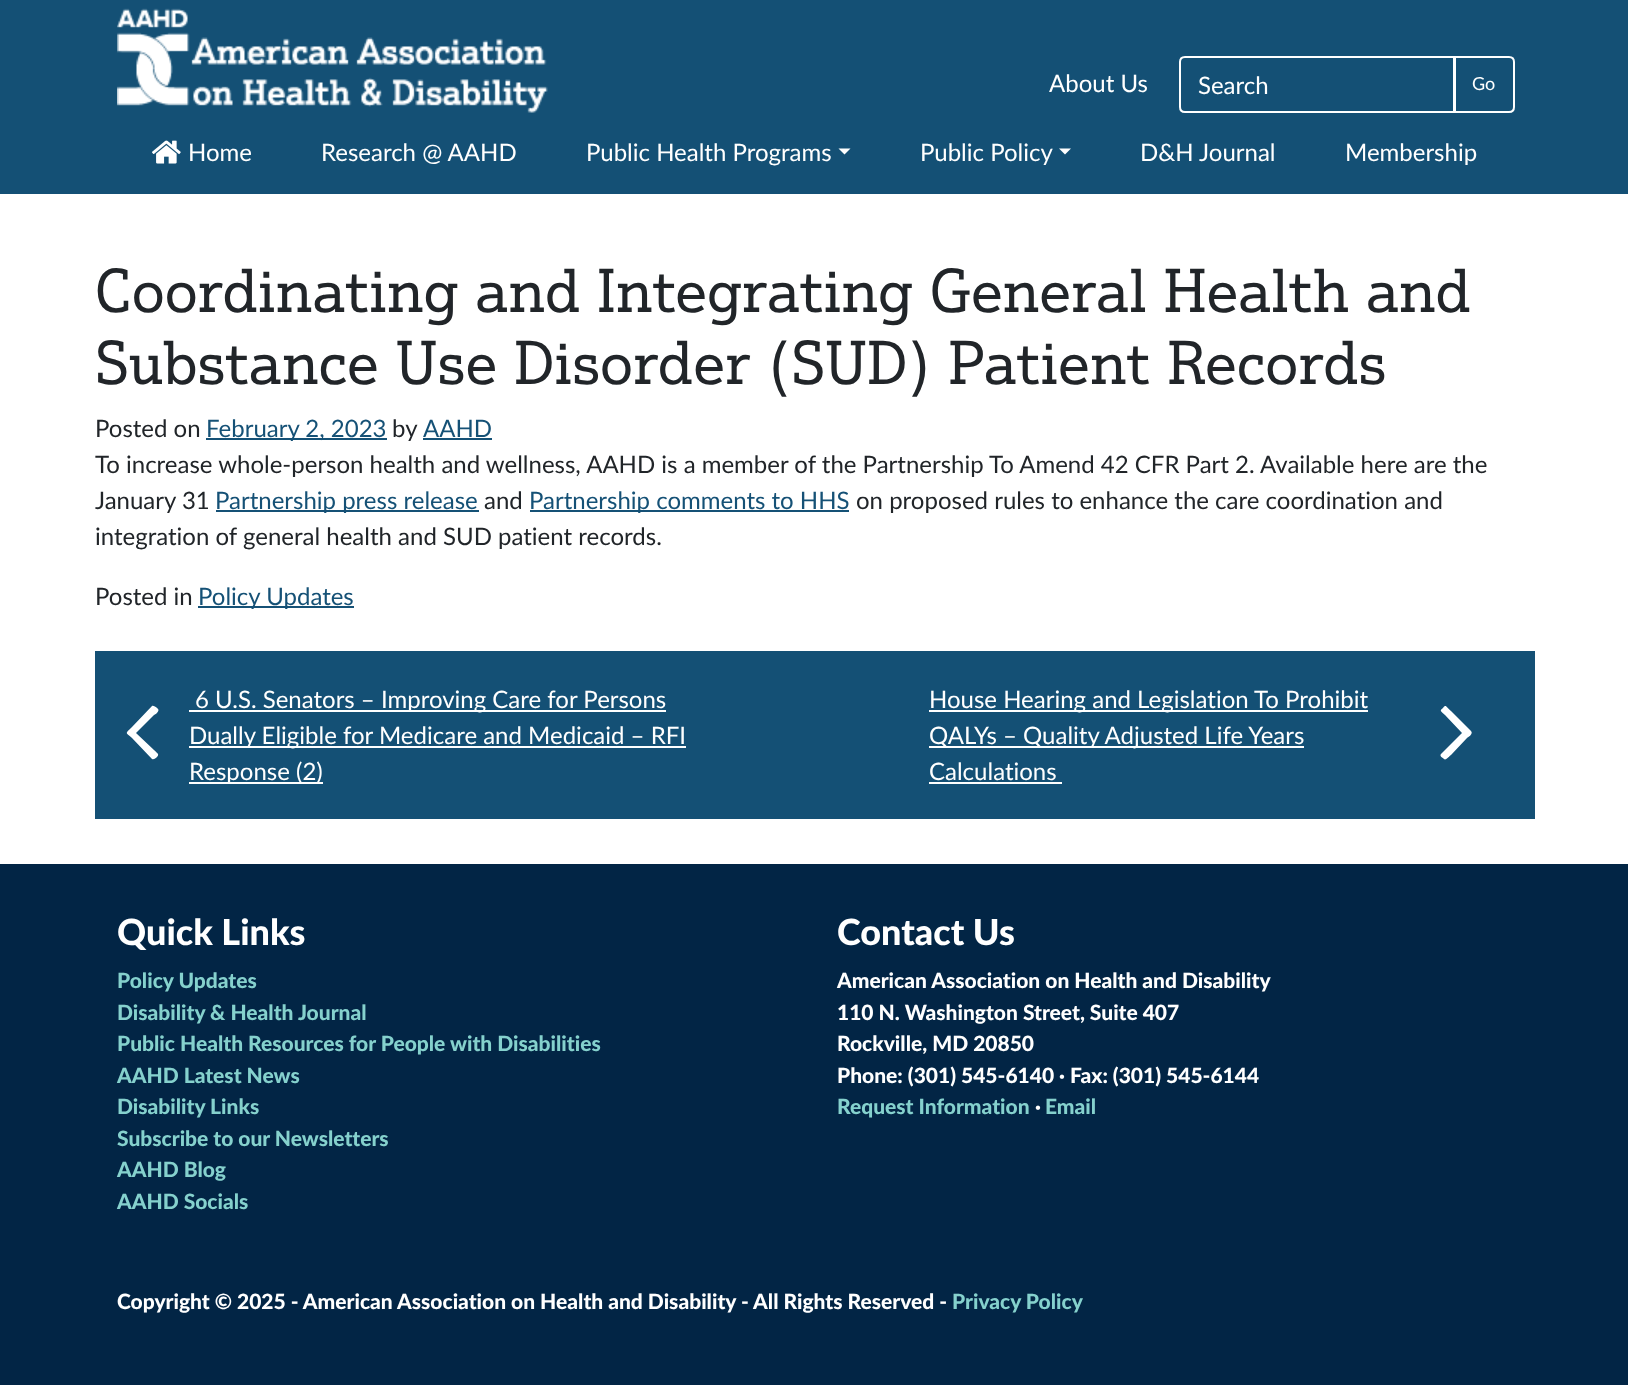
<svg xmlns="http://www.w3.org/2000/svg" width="1628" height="1385">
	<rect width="100%" height="100%" fill="#FFFFFF" />
	<rect x="0" y="0" width="1628" height="194" fill="#145075" />
	<image x="117" y="8" width="431" height="105" href="assets/img1.png" />
	<text x="1049" y="92" font-family="Lato" font-size="24" fill="#FFFFFF">About Us</text>
	<path d="M1185 57H1454V112H1185C1182 112 1180 110 1180 107V62C1180 59 1182 57 1185 57Z" fill="none" stroke="#FFFFFF" stroke-width="2" />
	<text x="1198" y="94" font-family="Lato" font-size="24" fill="#FFFFFF">Search</text>
	<path d="M1455 57H1509C1512 57 1514 59 1514 62V107C1514 110 1512 112 1509 112H1455Z" fill="#145075" stroke="#FFFFFF" stroke-width="2" />
	<text x="1472" y="90" font-family="Lato" font-size="18" fill="#FFFFFF">Go</text>
	<image x="152" y="140" width="29" height="24" href="assets/img2.png" />
	<g font-family="Lato" font-size="24" fill="#FFFFFF">
		<text x="188" y="161">Home</text>
		<text x="321" y="161">Research @ AAHD</text>
		<text x="586" y="161">Public Health Programs</text>
	</g>
	<path d="M838.5 148.5H850.5L844.5 154.5Z" fill="#FFFFFF" />
	<text x="920" y="161" font-family="Lato" font-size="24" fill="#FFFFFF">Public Policy</text>
	<path d="M1059 148.5H1071L1065 154.5Z" fill="#FFFFFF" />
	<g font-family="Lato" font-size="24" fill="#FFFFFF">
		<text x="1140" y="161">D&amp;H Journal</text>
		<text x="1345" y="161">Membership</text>
	</g>
	<g font-family="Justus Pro" font-size="60" fill="#212529">
		<text x="95" y="312">Coordinating and Integrating General Health and</text>
		<text x="95" y="384">Substance Use Disorder (SUD) Patient Records</text>
	</g>
	<text x="95" y="437" font-family="Lato" font-size="24" fill="#212529">Posted on</text>
	<rect x="206" y="438" width="181" height="2" fill="#155176" />
	<text x="206" y="437" font-family="Lato" font-size="24" fill="#155176">February 2, 2023</text>
	<text x="392" y="437" font-family="Lato" font-size="24" fill="#212529">by</text>
	<rect x="423" y="438" width="69" height="2" fill="#155176" />
	<text x="423" y="437" font-family="Lato" font-size="24" fill="#155176">AAHD</text>
	<g font-family="Lato" font-size="24" fill="#212529">
		<text x="95" y="473">To increase whole-person health and wellness, AAHD is a member of the Partnership To Amend 42 CFR Part 2. Available here are the</text>
		<text x="95" y="509">January 31</text>
	</g>
	<rect x="216" y="510" width="263" height="2" fill="#155176" />
	<text x="215" y="509" font-family="Lato" font-size="24" fill="#155176">Partnership press release</text>
	<text x="484" y="509" font-family="Lato" font-size="24" fill="#212529">and</text>
	<rect x="530" y="510" width="319" height="2" fill="#155176" />
	<text x="529" y="509" font-family="Lato" font-size="24" fill="#155176">Partnership comments to HHS</text>
	<g font-family="Lato" font-size="24" fill="#212529">
		<text x="856" y="509">on proposed rules to enhance the care coordination and</text>
		<text x="95" y="545">integration of general health and SUD patient records.</text>
		<text x="95" y="605">Posted in</text>
	</g>
	<rect x="198" y="606" width="156" height="2" fill="#155176" />
	<text x="198" y="605" font-family="Lato" font-size="24" fill="#155176">Policy Updates</text>
	<rect x="95" y="651" width="1440" height="168" fill="#145075" />
	<rect x="189" y="710" width="477" height="2" fill="#FFFFFF" />
	<text x="195" y="708" font-family="Lato" font-size="24" fill="#FFFFFF">6 U.S. Senators – Improving Care for Persons</text>
	<path d="M158 709C160 711 155 715 154 715L136 733L154 750C158 754 160 754 156 758C155 758 154 760 152 759L132 738C125 732 125 734 132 727L152 706C154 705 157 708 158 709Z" fill="#FFFFFF" />
	<rect x="189" y="746" width="497" height="2" fill="#FFFFFF" />
	<text x="189" y="744" font-family="Lato" font-size="24" fill="#FFFFFF">Dually Eligible for Medicare and Medicaid – RFI</text>
	<rect x="189" y="782" width="134" height="2" fill="#FFFFFF" />
	<text x="189" y="780" font-family="Lato" font-size="24" fill="#FFFFFF">Response (2)</text>
	<rect x="929" y="710" width="439" height="2" fill="#FFFFFF" />
	<text x="929" y="708" font-family="Lato" font-size="24" fill="#FFFFFF">House Hearing and Legislation To Prohibit</text>
	<rect x="929" y="746" width="375" height="2" fill="#FFFFFF" />
	<text x="929" y="744" font-family="Lato" font-size="24" fill="#FFFFFF">QALYs – Quality Adjusted Life Years</text>
	<path d="M1471 731C1474 734 1467 738 1467 738L1451 755C1450 755 1446 761 1444 759C1443 758 1439 756 1441 754L1462 733L1445 715C1441 711 1439 711 1443 708C1446 704 1446 707 1451 711Z" fill="#FFFFFF" />
	<text x="929" y="780" font-family="Lato" font-size="24" fill="#FFFFFF">Calculations</text>
	<rect x="929" y="782" width="133" height="2" fill="#FFFFFF" />
	<rect x="0" y="864" width="1628" height="521" fill="#022545" />
	<text x="117" y="945" font-family="Lato" font-size="36" font-weight="900" fill="#FFFFFF">Quick Links</text>
	<g font-family="Lato" font-size="21" font-weight="900" fill="#85D1CD">
		<text x="117" y="988">Policy Updates</text>
		<text x="117" y="1020">Disability &amp; Health Journal</text>
		<text x="117" y="1051">Public Health Resources for People with Disabilities</text>
		<text x="117" y="1083">AAHD Latest News</text>
		<text x="117" y="1114">Disability Links</text>
		<text x="117" y="1146">Subscribe to our Newsletters</text>
		<text x="117" y="1177">AAHD Blog</text>
		<text x="117" y="1209">AAHD Socials</text>
	</g>
	<text x="837" y="945" font-family="Lato" font-size="36" font-weight="900" fill="#FFFFFF">Contact Us</text>
	<g font-family="Lato" font-size="21" font-weight="900" fill="#FFFFFF">
		<text x="837" y="988">American Association on Health and Disability</text>
		<text x="837" y="1020">110 N. Washington Street, Suite 407</text>
		<text x="837" y="1051">Rockville, MD 20850</text>
		<text x="837" y="1083">Phone: (301) 545-6140 · Fax: (301) 545-6144</text>
	</g>
	<text x="837" y="1114" font-family="Lato" font-size="21" font-weight="900" fill="#85D1CD">Request Information</text>
	<text x="1035" y="1114" font-family="Lato" font-size="21" font-weight="900" fill="#FFFFFF">·</text>
	<text x="1045" y="1114" font-family="Lato" font-size="21" font-weight="900" fill="#85D1CD">Email</text>
	<text x="117" y="1309" font-family="Lato" font-size="21" font-weight="900" fill="#FFFFFF">Copyright © 2025 - American Association on Health and Disability - All Rights Reserved -</text>
	<text x="952" y="1309" font-family="Lato" font-size="21" font-weight="900" fill="#85D1CD">Privacy Policy</text>
</svg>
